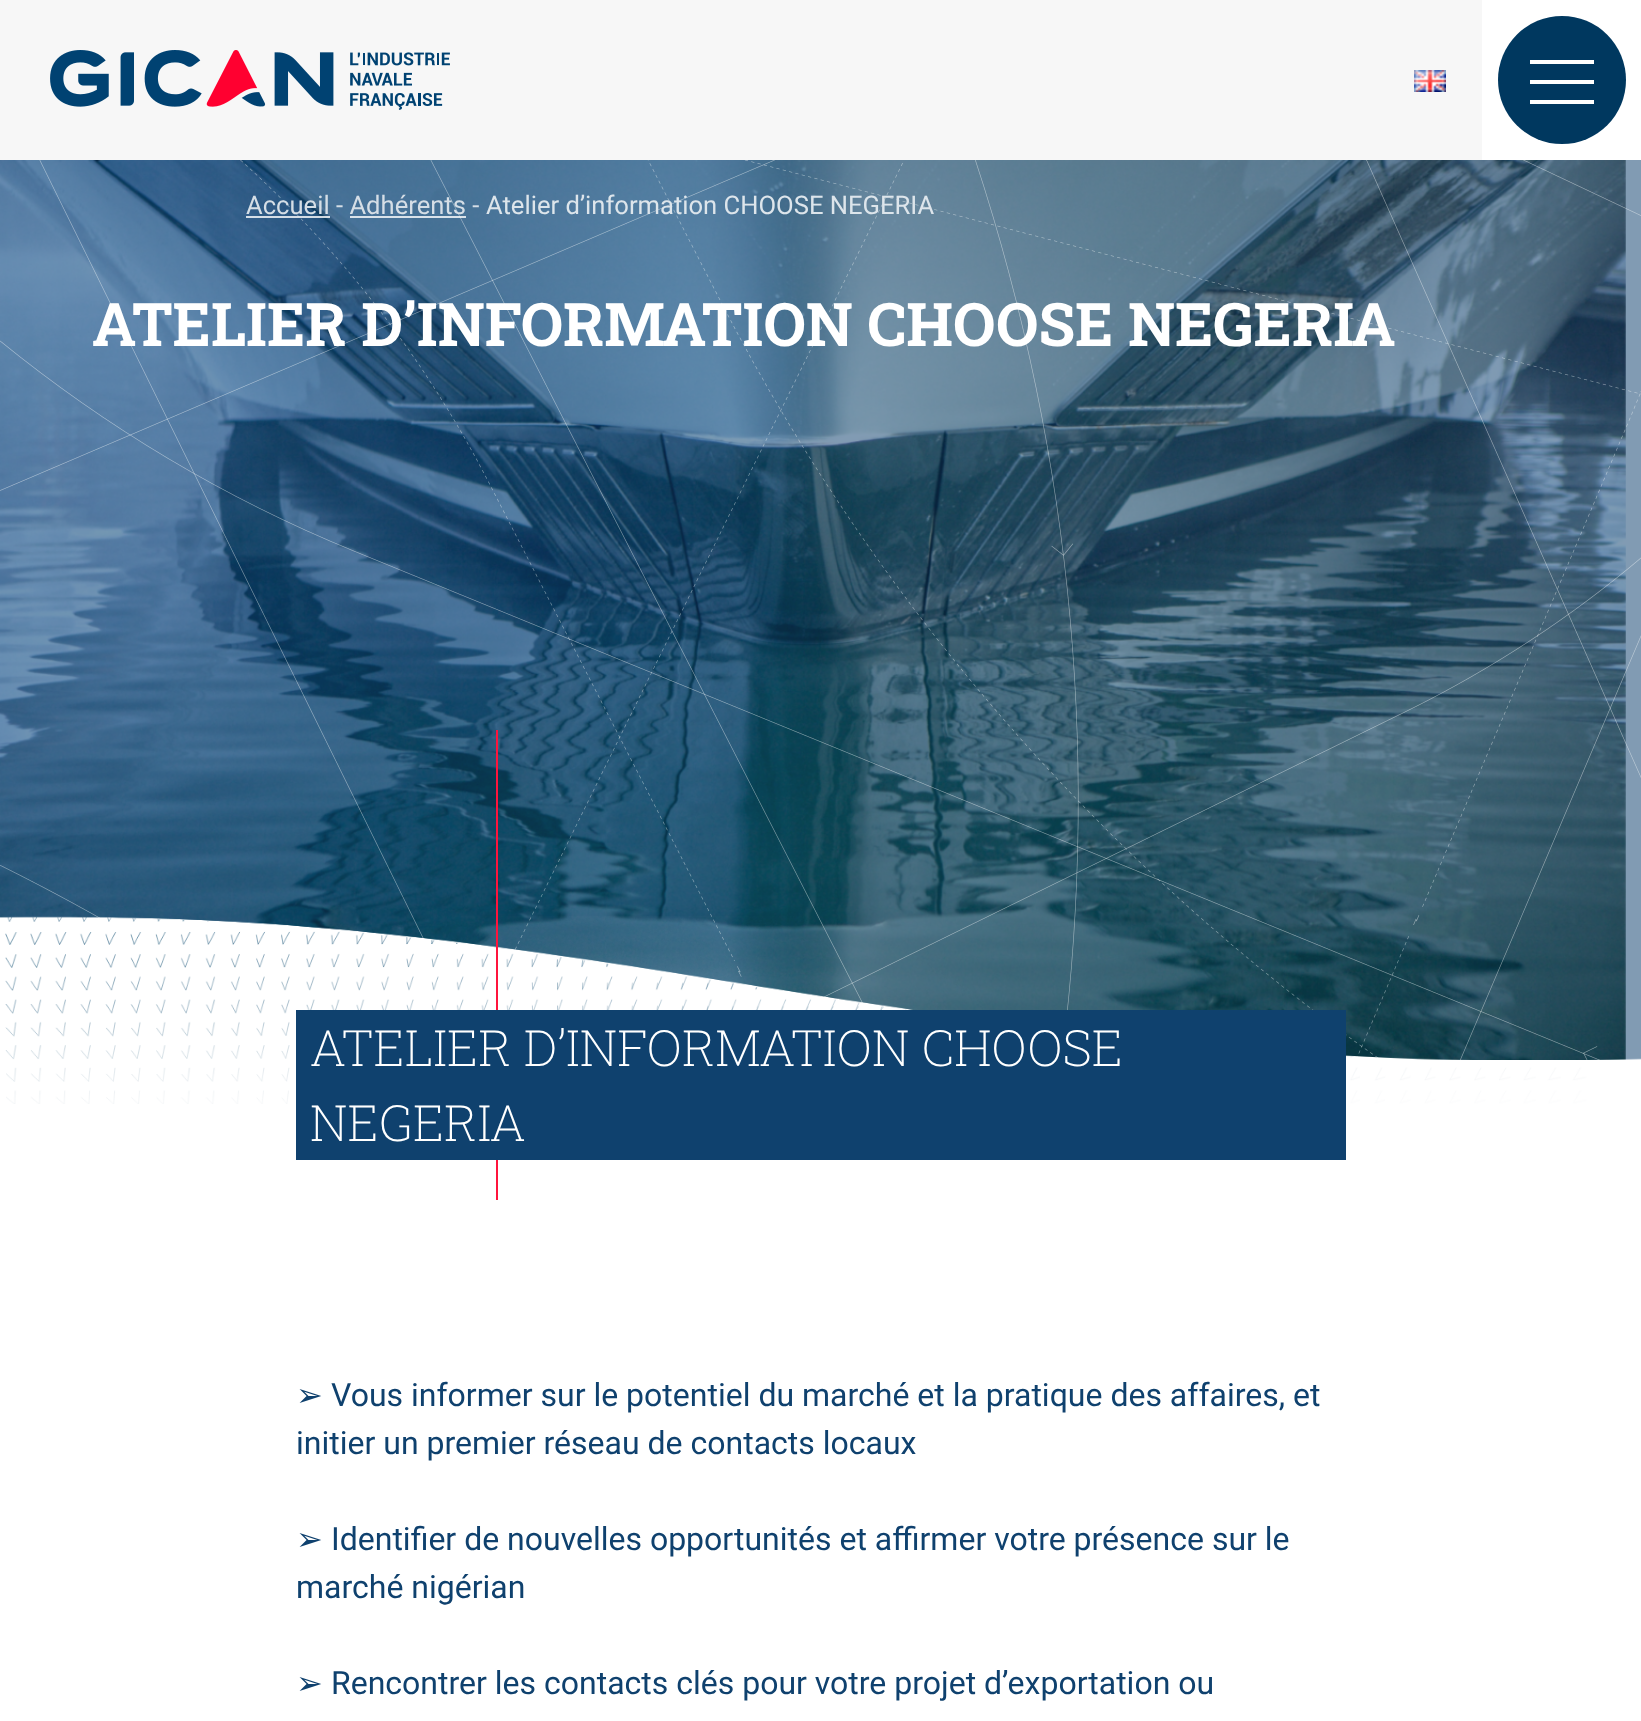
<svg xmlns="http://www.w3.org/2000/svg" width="1641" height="1721">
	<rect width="100%" height="100%" fill="#FFFFFF" />
	<rect x="0" y="0" width="1482" height="160" fill="#F7F7F7" />
	<image x="50" y="50" width="400" height="60" href="assets/img1.png" />
	<image x="1414" y="70" width="32" height="22" href="assets/img2.png" />
	<circle cx="1562" cy="80" r="64" fill="#00385F" />
	<rect x="1530" y="60" width="64" height="4" fill="#FFFFFF" />
	<rect x="1530" y="80" width="64" height="4" fill="#FFFFFF" />
	<rect x="1530" y="100" width="64" height="4" fill="#FFFFFF" />
	<image x="0" y="160" width="1626" height="900" href="assets/img3.png" />
	<image x="0" y="160" width="1641" height="900" href="assets/img4.png" />
	<text x="246" y="214" font-family="Roboto" font-size="25.6" fill="#D5DEE6">Accueil</text>
	<rect x="246" y="216" width="84" height="2" fill="#FFFFFF" fill-opacity="0.8" />
	<text x="336" y="214" font-family="Roboto" font-size="25.6" fill="#D5DEE6">- Adhérents -</text>
	<text x="486" y="214" font-family="Roboto" font-size="25.6" fill="#DDE5EB">Atelier d’information CHOOSE NEGERIA</text>
	<rect x="350" y="216" width="116" height="2" fill="#FFFFFF" fill-opacity="0.8" />
	<text x="92" y="346" font-family="Roboto Slab" font-size="60" font-weight="700" fill="#FFFFFF">ATELIER D’INFORMATION CHOOSE NEGERIA</text>
	<image x="0" y="916" width="1641" height="188" href="assets/img5.png" />
	<rect x="296" y="1010" width="1050" height="150" fill="#0F416E" />
	<rect x="496" y="730" width="2" height="280" fill="#FF143C" />
	<g font-family="Roboto Slab" font-size="50" font-weight="200" fill="#FFFFFF">
		<text x="310" y="1066">ATELIER D’INFORMATION CHOOSE</text>
		<text x="310" y="1141">NEGERIA</text>
	</g>
	<rect x="496" y="1160" width="2" height="40" fill="#FF143C" />
	<text x="296" y="1406" font-family="DejaVu Sans" font-size="32" fill="#0F416E">➢</text>
	<g font-family="Roboto" font-size="32" fill="#0F416E">
		<text x="331" y="1406">Vous informer sur le potentiel du marché et la pratique des affaires, et</text>
		<text x="296" y="1454">initier un premier réseau de contacts locaux</text>
	</g>
	<text x="296" y="1550" font-family="DejaVu Sans" font-size="32" fill="#0F416E">➢</text>
	<g font-family="Roboto" font-size="32" fill="#0F416E">
		<text x="331" y="1550">Identifier de nouvelles opportunités et affirmer votre présence sur le</text>
		<text x="296" y="1598">marché nigérian</text>
	</g>
	<text x="296" y="1694" font-family="DejaVu Sans" font-size="32" fill="#0F416E">➢</text>
	<text x="331" y="1694" font-family="Roboto" font-size="32" fill="#0F416E">Rencontrer les contacts clés pour votre projet d’exportation ou</text>
</svg>
